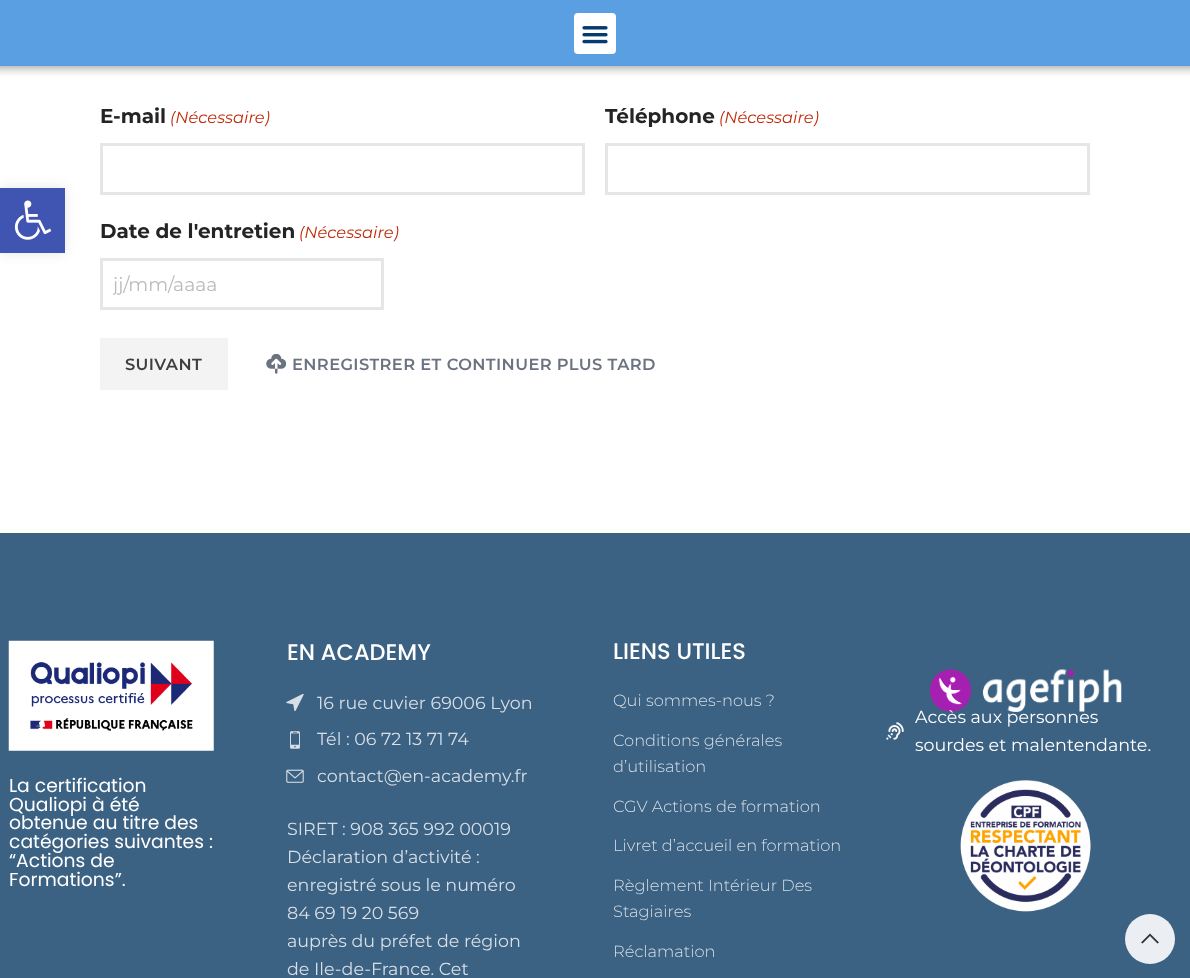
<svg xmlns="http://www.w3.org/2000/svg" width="1190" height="978">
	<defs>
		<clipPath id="clip1"><rect x="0" y="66" width="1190" height="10" /></clipPath>
		<clipPath id="clip2"><rect x="113" y="271" width="258" height="24" /></clipPath>
	</defs>
	<rect width="100%" height="100%" fill="#FFFFFF" />
	<rect x="0" y="0" width="1190" height="66" fill="#599FE2" />
	<g clip-path="url(#clip1)">
		<rect x="-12" y="0" width="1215" height="66" fill="#000000" fill-opacity="0.5" filter="blur(6px)" />
	</g>
	<rect x="574" y="13" width="42" height="41" rx="4" fill="#FFFFFF" />
	<image x="582" y="26" width="26" height="18" href="assets/img1.png" />
	<text x="100" y="123" font-family="Montserrat" font-size="20" font-weight="700" fill="#242424">E-mail</text>
	<text x="170" y="123" font-family="Montserrat" font-size="16.25" font-style="italic" fill="#C02B0A">(Nécessaire)</text>
	<rect x="101.5" y="144.5" width="482" height="49" fill="none" stroke="#E6E6E6" stroke-width="3" />
	<text x="605" y="123" font-family="Montserrat" font-size="20" font-weight="700" fill="#242424">Téléphone</text>
	<text x="719" y="123" font-family="Montserrat" font-size="16.25" font-style="italic" fill="#C02B0A">(Nécessaire)</text>
	<rect x="606.5" y="144.5" width="482" height="49" fill="none" stroke="#E6E6E6" stroke-width="3" />
	<text x="100" y="238" font-family="Montserrat" font-size="20" font-weight="700" fill="#242424">Date de l'entretien</text>
	<text x="299" y="238" font-family="Montserrat" font-size="16.25" font-style="italic" fill="#C02B0A">(Nécessaire)</text>
	<rect x="101.5" y="259.5" width="281" height="49" fill="none" stroke="#E6E6E6" stroke-width="3" />
	<g clip-path="url(#clip2)">
		<text x="113" y="291" font-family="Montserrat" font-size="18.75" fill="#BBBBBB">jj/mm/aaaa</text>
	</g>
	<rect x="100" y="338" width="128" height="52" fill="#F3F3F3" />
	<text x="125" y="370" font-family="Montserrat" font-size="16.25" font-weight="600" letter-spacing="0.4" fill="#3E3E3E">SUIVANT</text>
	<image x="266" y="354" width="20" height="20" href="assets/img2.png" />
	<text x="292" y="370" font-family="Montserrat" font-size="16.25" font-weight="600" letter-spacing="0.4" fill="#6B7280">ENREGISTRER ET CONTINUER PLUS TARD</text>
	<rect x="0" y="533" width="1190" height="445" fill="#3B6183" />
	<text x="287" y="660" font-family="Poppins" font-size="22.5" font-weight="500" fill="#FFFFFF">EN ACADEMY</text>
	<image x="286" y="694" width="18" height="17" href="assets/img3.png" />
	<text x="317" y="709" font-family="Montserrat" font-size="17.5" fill="#D8DFE6">16 rue cuvier 69006 Lyon</text>
	<image x="290" y="731" width="10" height="18" href="assets/img4.png" />
	<text x="317" y="745" font-family="Montserrat" font-size="17.5" fill="#D8DFE6">Tél : 06 72 13 71 74</text>
	<image x="286" y="769" width="18" height="14" href="assets/img5.png" />
	<g font-family="Montserrat" font-size="17.5" fill="#D8DFE6">
		<text x="317" y="782">contact@en-academy.fr</text>
		<text x="287" y="835">SIRET : 908 365 992 00019</text>
		<text x="287" y="863">Déclaration d’activité :</text>
		<text x="287" y="891">enregistré sous le numéro</text>
		<text x="287" y="919">84 69 19 20 569</text>
		<text x="287" y="947">auprès du préfet de région</text>
		<text x="287" y="975">de Ile-de-France. Cet</text>
	</g>
	<text x="613" y="659" font-family="Poppins" font-size="22.5" font-weight="500" fill="#FFFFFF">LIENS UTILES</text>
	<g font-family="Montserrat" font-size="16.25" font-weight="300" fill="#D8DFE6">
		<text x="613" y="706">Qui sommes-nous ?</text>
		<text x="613" y="746">Conditions générales</text>
		<text x="613" y="772">d’utilisation</text>
		<text x="613" y="812">CGV Actions de formation</text>
		<text x="613" y="851">Livret d’accueil en formation</text>
		<text x="613" y="891">Règlement Intérieur Des</text>
		<text x="613" y="917">Stagiaires</text>
		<text x="613" y="957">Réclamation</text>
	</g>
	<image x="930" y="669" width="192" height="43" href="assets/img6.png" />
	<image x="886" y="722" width="18" height="18" href="assets/img7.png" />
	<g font-family="Montserrat" font-size="17.5" fill="#FFFFFF">
		<text x="915" y="723">Accès aux personnes</text>
		<text x="915" y="751">sourdes et malentendante.</text>
	</g>
	<image x="960" y="780" width="131" height="132" href="assets/img8.png" />
	<image x="8" y="640" width="206" height="111" href="assets/img9.png" />
	<g font-family="Poppins" font-size="18.75" fill="#FFFFFF">
		<text x="9" y="792">La certification</text>
		<text x="9" y="811">Qualiopi à été</text>
		<text x="9" y="829">obtenue au titre des</text>
		<text x="9" y="848">catégories suivantes :</text>
		<text x="9" y="867">“Actions de</text>
		<text x="9" y="886">Formations”.</text>
	</g>
	<rect x="0" y="188" width="65" height="65" fill="#000000" fill-opacity="0.1" filter="blur(6px)" />
	<rect x="0" y="188" width="65" height="65" fill="#4054B2" />
	<image x="14" y="200" width="38" height="40" href="assets/img10.png" />
	<circle cx="1150" cy="939" r="25" fill="#FFFFFF" fill-opacity="0.9" />
	<path d="M1150 933.5L1159 942.5L1157.5 943.5L1150 936L1142.5 943.5L1141 942.5Z" fill="#333333" />
</svg>
